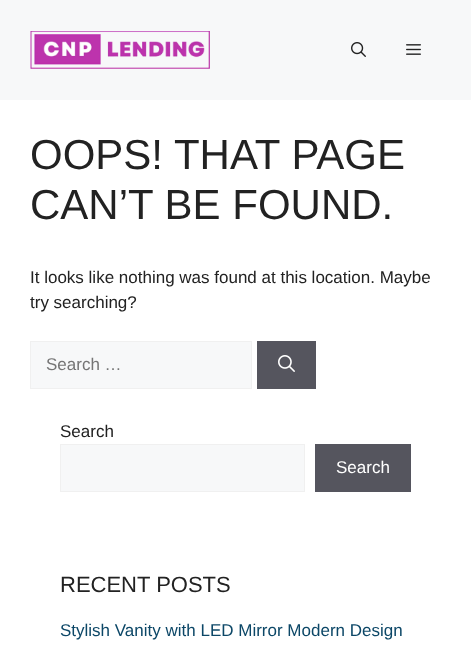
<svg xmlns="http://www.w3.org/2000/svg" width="471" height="654">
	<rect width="100%" height="100%" fill="#FFFFFF" />
	<rect x="0" y="0" width="471" height="100" fill="#F7F8F9" />
	<image x="30" y="31" width="180" height="38" href="assets/img1.png" />
	<image x="351" y="42" width="15" height="15" href="assets/img2.png" />
	<image x="406" y="44" width="15" height="11" href="assets/img3.png" />
	<g font-family="Liberation Sans" font-size="42" fill="#222222">
		<text x="30" y="169">OOPS! THAT PAGE</text>
		<text x="30" y="219">CAN’T BE FOUND.</text>
	</g>
	<g font-family="Liberation Sans" font-size="17" fill="#222222">
		<text x="30" y="283">It looks like nothing was found at this location. Maybe</text>
		<text x="30" y="308">try searching?</text>
	</g>
	<rect x="30.5" y="341.5" width="221" height="47" fill="#F7F8F9" stroke="#F0F0F0" />
	<text x="46" y="370" font-family="Liberation Sans" font-size="17" fill="#757575">Search …</text>
	<rect x="257" y="341" width="59" height="48" fill="#55555E" />
	<image x="278" y="355" width="17" height="17" href="assets/img4.png" />
	<text x="60" y="437" font-family="Liberation Sans" font-size="17" fill="#222222">Search</text>
	<rect x="60.5" y="444.5" width="244" height="47" fill="#F7F8F9" stroke="#F0F0F0" />
	<rect x="315" y="444" width="96" height="48" fill="#55555E" />
	<text x="336" y="473" font-family="Liberation Sans" font-size="17" fill="#FFFFFF">Search</text>
	<text x="60" y="592" font-family="Liberation Sans" font-size="22" fill="#222222">RECENT POSTS</text>
	<text x="60" y="636" font-family="Liberation Sans" font-size="17" fill="#0C4767">Stylish Vanity with LED Mirror Modern Design</text>
</svg>
